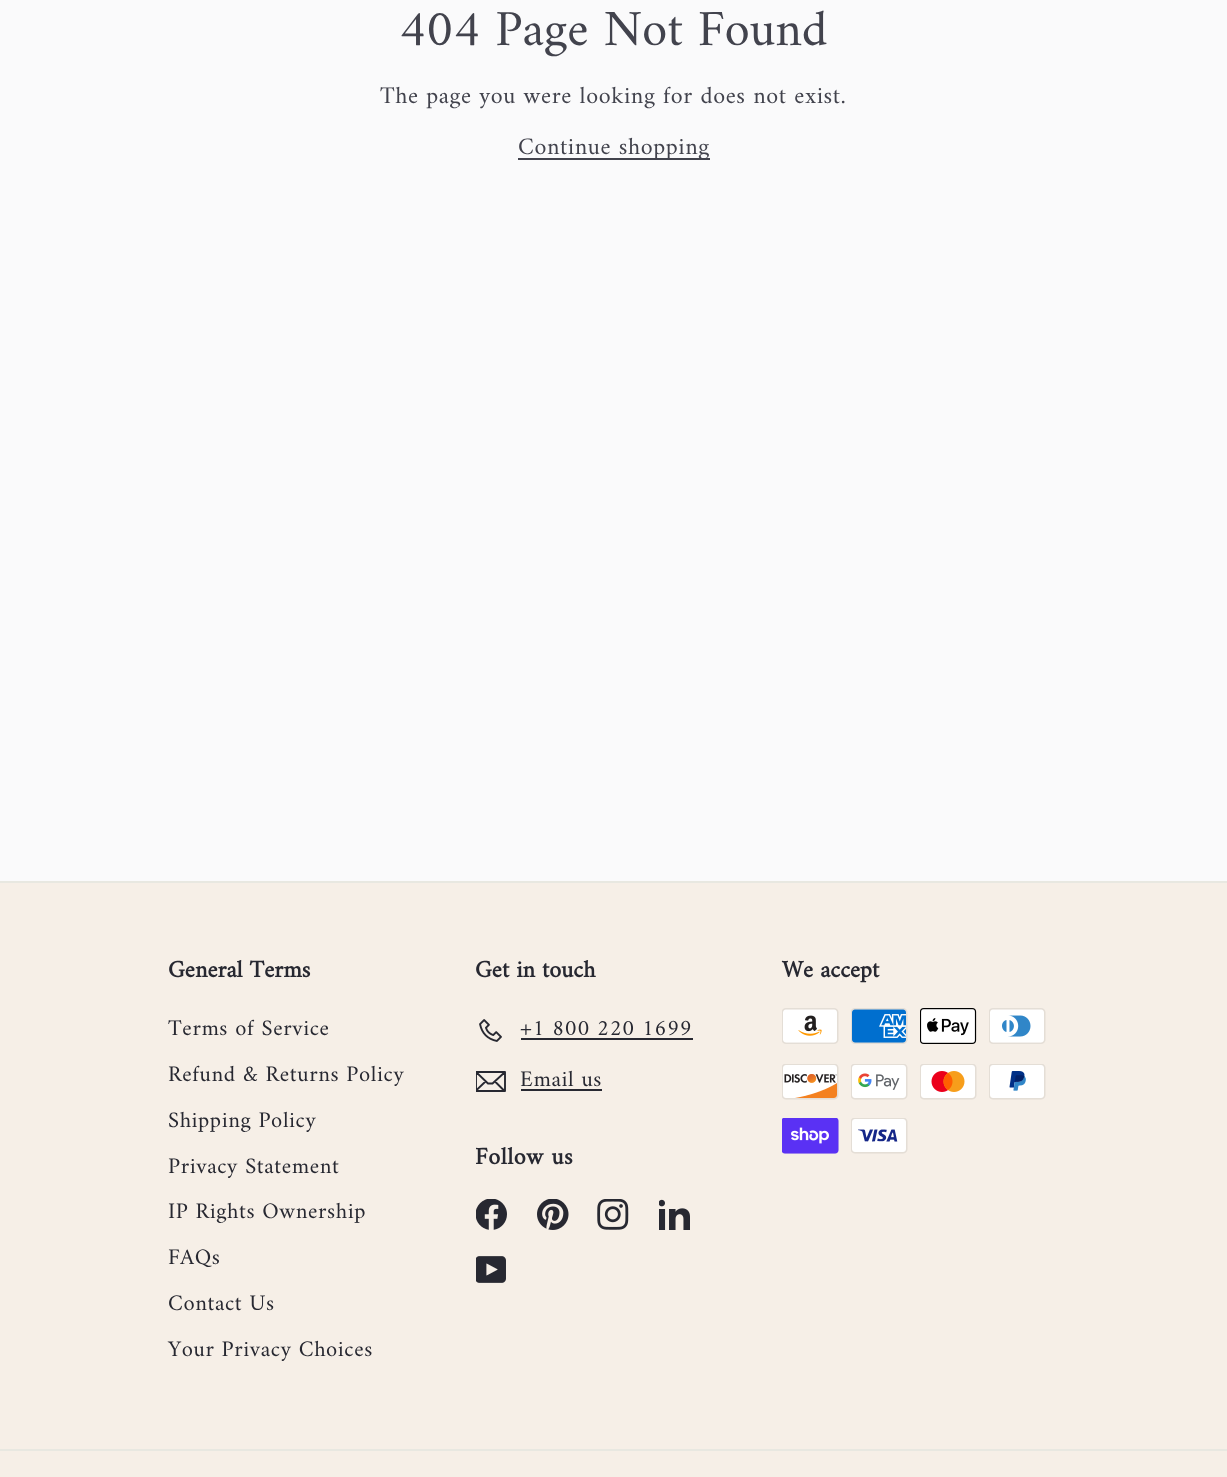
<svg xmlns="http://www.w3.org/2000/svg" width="1227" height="1477">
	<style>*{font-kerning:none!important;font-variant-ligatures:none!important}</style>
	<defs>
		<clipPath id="clip1"><rect x="476" y="1067" width="30" height="30" /></clipPath>
	</defs>
	<rect width="100%" height="100%" fill="#FAFAFB" />
	<text x="399" y="45" font-family="Amiri" font-size="51" fill="#42434D">404 Page Not Found</text>
	<text x="380" y="103" font-family="Amiri" font-size="24" letter-spacing="0.6" fill="#42434D">The page you were looking for does not exist.</text>
	<rect x="518" y="158" width="192" height="2" fill="#42434D" />
	<text x="518" y="154" font-family="Amiri" font-size="24" letter-spacing="0.6" fill="#42434D">Continue shopping</text>
	<rect x="0" y="883" width="1227" height="594" fill="#F6EFE7" />
	<rect x="0" y="881" width="1227" height="2" fill="#E8E8E1" />
	<text x="168" y="977" font-family="Amiri" font-size="24" font-weight="700" fill="#272831">General Terms</text>
	<g font-family="Amiri" font-size="22.5" letter-spacing="0.6" fill="#272831">
		<text x="168" y="1035">Terms of Service</text>
		<text x="168" y="1081">Refund &amp; Returns Policy</text>
		<text x="168" y="1127">Shipping Policy</text>
		<text x="168" y="1173">Privacy Statement</text>
		<text x="168" y="1218">IP Rights Ownership</text>
		<text x="168" y="1264">FAQs</text>
		<text x="168" y="1310">Contact Us</text>
		<text x="168" y="1356">Your Privacy Choices</text>
	</g>
	<text x="475" y="977" font-family="Amiri" font-size="24" font-weight="700" fill="#272831">Get in touch</text>
	<image x="479" y="1019" width="23" height="23" href="assets/img1.png" />
	<text x="520" y="1035" font-family="Amiri" font-size="22.5" letter-spacing="0.6" fill="#272831">+1 800 220 1699</text>
	<rect x="521" y="1038" width="172" height="2" fill="#272831" />
	<g clip-path="url(#clip1)">
		<path d="M505 1091H476V1072H505ZM476 1072L488 1083.5H492.5L505 1072M485.5 1081.5L476 1090.5M504.5 1091L495 1081.5" fill="none" stroke="#272831" stroke-width="1.9" stroke-linejoin="round" />
	</g>
	<text x="520" y="1086" font-family="Amiri" font-size="22.5" letter-spacing="0.6" fill="#272831">Email us</text>
	<rect x="521" y="1089" width="81" height="2" fill="#272831" />
	<text x="475" y="1164" font-family="Amiri" font-size="24" font-weight="700" letter-spacing="0.6" fill="#272831">Follow us</text>
	<image x="476" y="1199" width="31" height="31" href="assets/img2.png" />
	<image x="537" y="1199" width="32" height="31" href="assets/img3.png" />
	<image x="597" y="1199" width="32" height="31" href="assets/img4.png" />
	<image x="659" y="1199" width="31" height="31" href="assets/img5.png" />
	<image x="476" y="1256" width="30" height="27" href="assets/img6.png" />
	<text x="782" y="977" font-family="Amiri" font-size="24" font-weight="700" fill="#272831">We accept</text>
	<image x="782" y="1008" width="57" height="36" href="assets/img7.png" />
	<image x="851" y="1008" width="57" height="36" href="assets/img8.png" />
	<image x="920" y="1008" width="57" height="36" href="assets/img9.png" />
	<image x="989" y="1008" width="57" height="36" href="assets/img10.png" />
	<image x="782" y="1064" width="57" height="36" href="assets/img11.png" />
	<image x="851" y="1064" width="57" height="36" href="assets/img12.png" />
	<image x="920" y="1064" width="57" height="36" href="assets/img13.png" />
	<image x="989" y="1064" width="57" height="36" href="assets/img14.png" />
	<image x="782" y="1118" width="57" height="36" href="assets/img15.png" />
	<image x="851" y="1118" width="57" height="36" href="assets/img16.png" />
	<rect x="0" y="1449" width="1227" height="2" fill="#E8E8E1" />
</svg>
